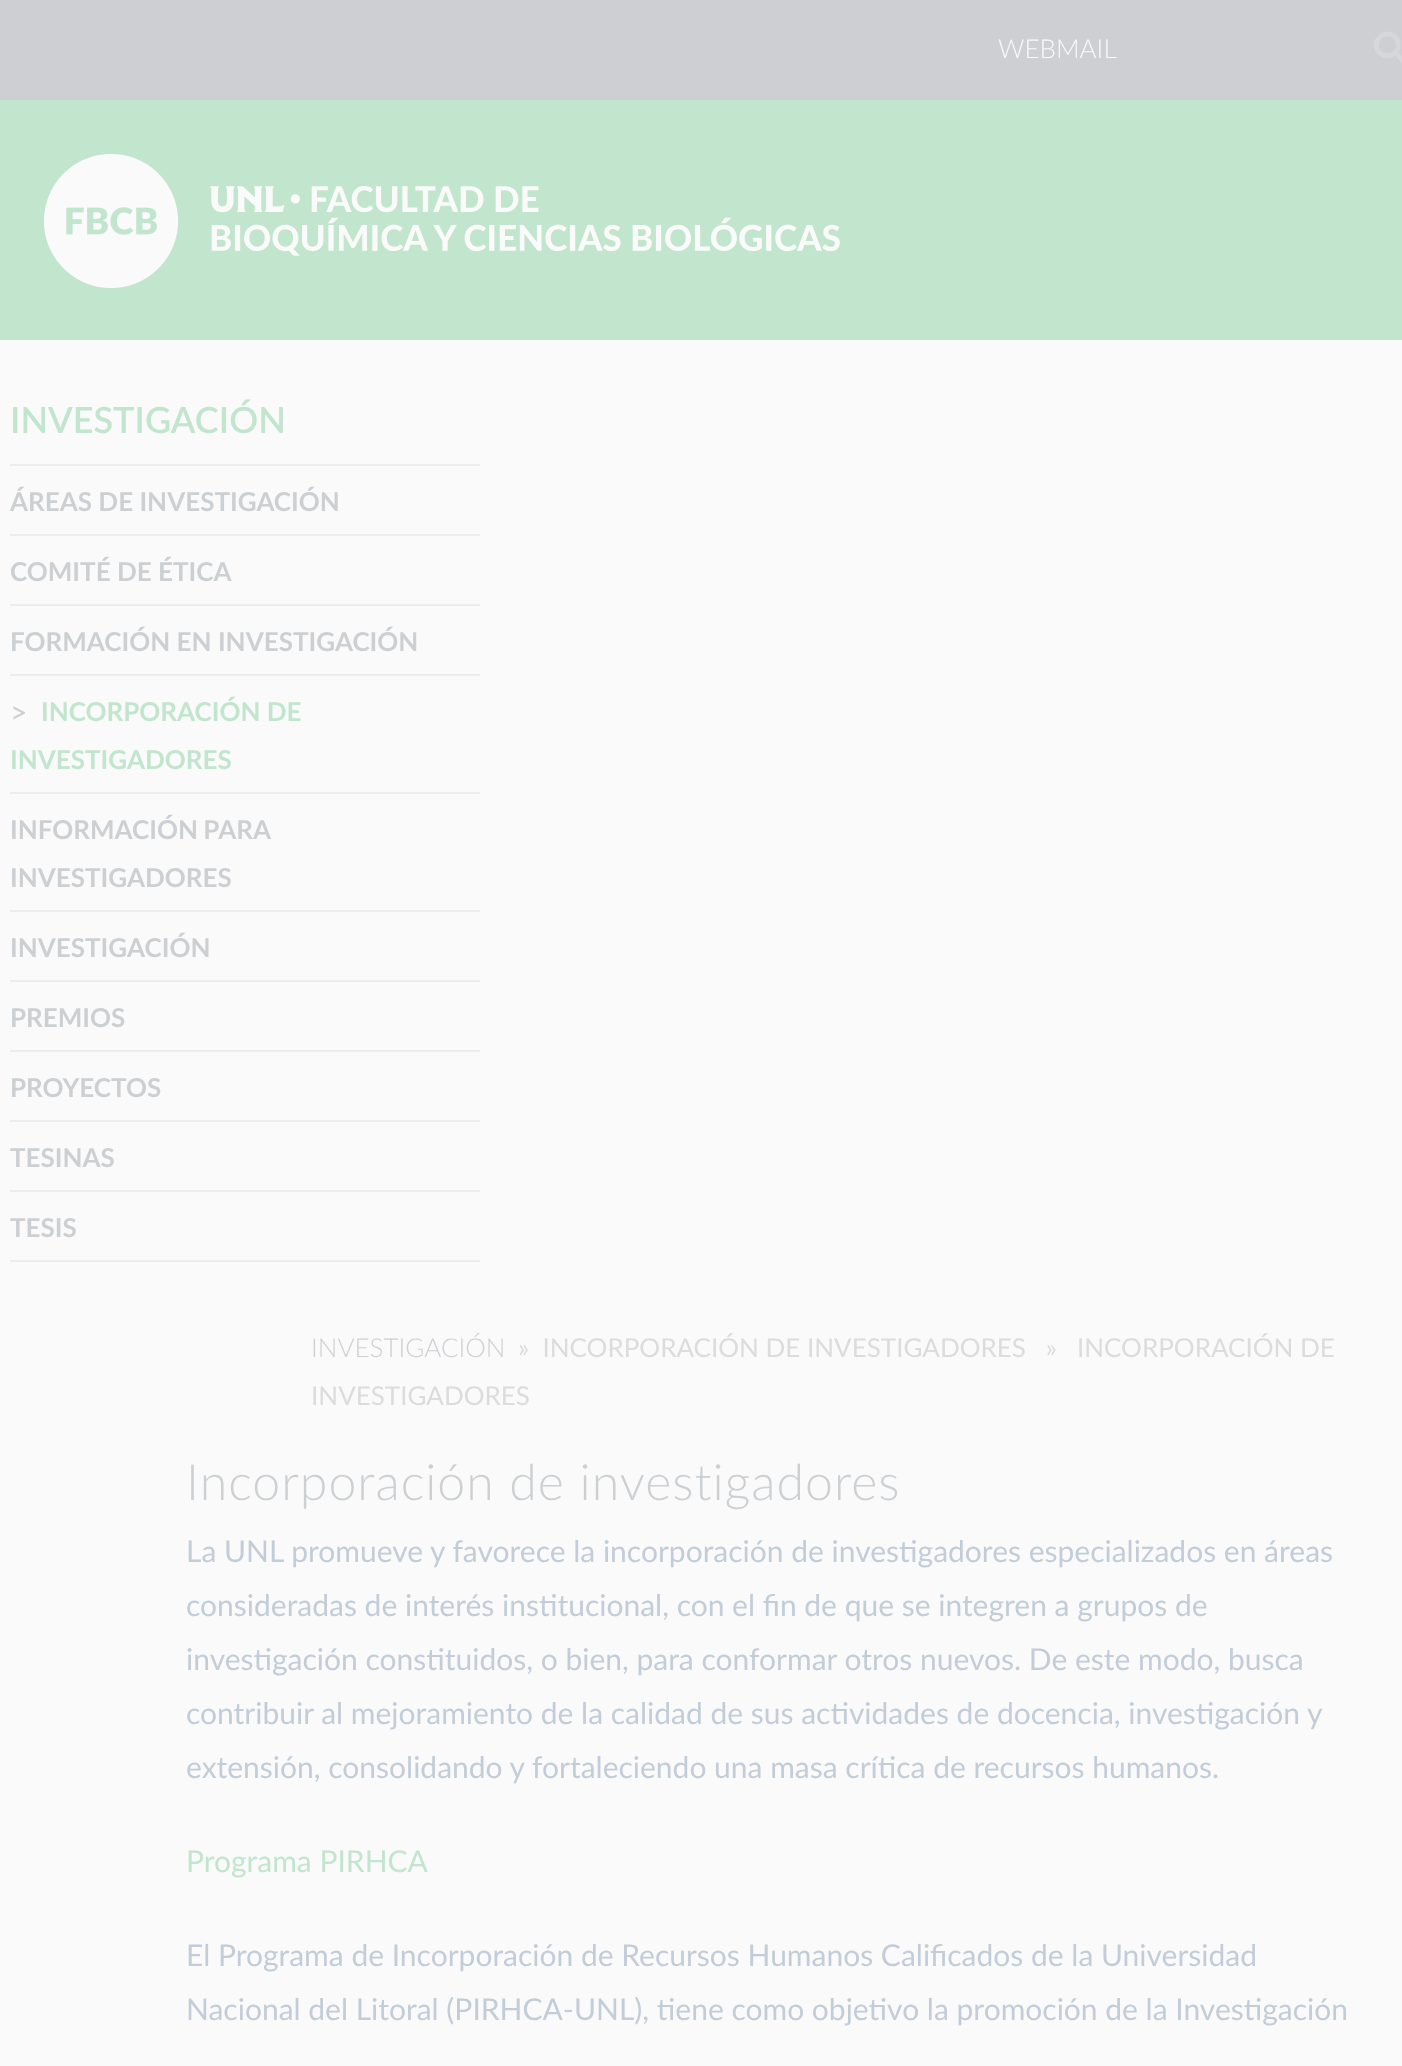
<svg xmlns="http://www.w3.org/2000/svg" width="1402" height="2066">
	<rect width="100%" height="100%" fill="#FAFAFA" />
	<rect x="0" y="100" width="1402" height="240" fill="#C2E5CD" />
	<rect x="0" y="0" width="1402" height="100" fill="#CDCFD3" />
	<text x="998" y="58" font-family="Lato" font-size="26" font-weight="300" fill="#F9F9F9">WEBMAIL</text>
	<image x="1374" y="31" width="28" height="32" href="assets/img1.png" />
	<image x="43" y="153" width="136" height="136" href="assets/img2.png" />
	<image x="210" y="186" width="630" height="70" href="assets/img3.png" />
	<text x="10" y="433" font-family="Lato" font-size="36" font-weight="600" fill="#C2E5CD">INVESTIGACIÓN</text>
	<rect x="10" y="464" width="470" height="2" fill="#EDEDEE" />
	<text x="10" y="511" font-family="Lato" font-size="26" font-weight="700" fill="#CDD0D3">ÁREAS DE INVESTIGACIÓN</text>
	<rect x="10" y="534" width="470" height="2" fill="#EDEDEE" />
	<text x="10" y="581" font-family="Lato" font-size="26" font-weight="700" fill="#CDD0D3">COMITÉ DE ÉTICA</text>
	<rect x="10" y="604" width="470" height="2" fill="#EDEDEE" />
	<text x="10" y="651" font-family="Lato" font-size="26" font-weight="700" fill="#CDD0D3">FORMACIÓN EN INVESTIGACIÓN</text>
	<rect x="10" y="674" width="470" height="2" fill="#EDEDEE" />
	<text x="10" y="723" font-family="Lato" font-size="30" fill="#CDD0D3">&gt;</text>
	<g font-family="Lato" font-size="26" font-weight="700" fill="#C2E5CD">
		<text x="41" y="721">INCORPORACIÓN DE</text>
		<text x="10" y="769">INVESTIGADORES</text>
	</g>
	<rect x="10" y="792" width="470" height="2" fill="#EDEDEE" />
	<g font-family="Lato" font-size="26" font-weight="700" fill="#CDD0D3">
		<text x="10" y="839" word-spacing="-1">INFORMACIÓN PARA</text>
		<text x="10" y="887">INVESTIGADORES</text>
	</g>
	<rect x="10" y="910" width="470" height="2" fill="#EDEDEE" />
	<text x="10" y="957" font-family="Lato" font-size="26" font-weight="700" fill="#CDD0D3">INVESTIGACIÓN</text>
	<rect x="10" y="980" width="470" height="2" fill="#EDEDEE" />
	<text x="10" y="1027" font-family="Lato" font-size="26" font-weight="700" fill="#CDD0D3">PREMIOS</text>
	<rect x="10" y="1050" width="470" height="2" fill="#EDEDEE" />
	<text x="10" y="1097" font-family="Lato" font-size="26" font-weight="700" fill="#CDD0D3">PROYECTOS</text>
	<rect x="10" y="1120" width="470" height="2" fill="#EDEDEE" />
	<text x="10" y="1167" font-family="Lato" font-size="26" font-weight="700" fill="#CDD0D3">TESINAS</text>
	<rect x="10" y="1190" width="470" height="2" fill="#EDEDEE" />
	<rect x="10" y="1260" width="470" height="2" fill="#EDEDEE" />
	<text x="10" y="1237" font-family="Lato" font-size="26" font-weight="700" fill="#CDD0D3">TESIS</text>
	<text x="311" y="1357" font-family="Lato" font-size="26" font-weight="300" fill="#CDD0D3">INVESTIGACIÓN</text>
	<g font-family="Lato" font-size="26" fill="#DCDCDC">
		<text x="518" y="1357" xml:space="preserve">»  INCORPORACIÓN DE INVESTIGADORES   »   INCORPORACIÓN DE</text>
		<text x="311" y="1405">INVESTIGADORES</text>
	</g>
	<text x="186" y="1500" font-family="Lato" font-size="50" font-weight="300" letter-spacing="1" fill="#CDD0D3">Incorporación de investigadores</text>
	<g font-family="Lato" font-size="30" fill="#C2CDD9">
		<text x="186" y="1562">La UNL promueve y favorece la incorporación de investigadores especializados en áreas</text>
		<text x="186" y="1616">consideradas de interés institucional, con el fin de que se integren a grupos de</text>
		<text x="186" y="1670">investigación constituidos, o bien, para conformar otros nuevos. De este modo, busca</text>
		<text x="186" y="1724">contribuir al mejoramiento de la calidad de sus actividades de docencia, investigación y</text>
		<text x="186" y="1778">extensión, consolidando y fortaleciendo una masa crítica de recursos humanos.</text>
	</g>
	<text x="186" y="1872" font-family="Lato" font-size="30" fill="#C2E5CD">Programa PIRHCA</text>
	<g font-family="Lato" font-size="30" fill="#C2CDD9">
		<text x="186" y="1966">El Programa de Incorporación de Recursos Humanos Calificados de la Universidad</text>
		<text x="186" y="2020">Nacional del Litoral (PIRHCA-UNL), tiene como objetivo la promoción de la Investigación</text>
	</g>
</svg>
